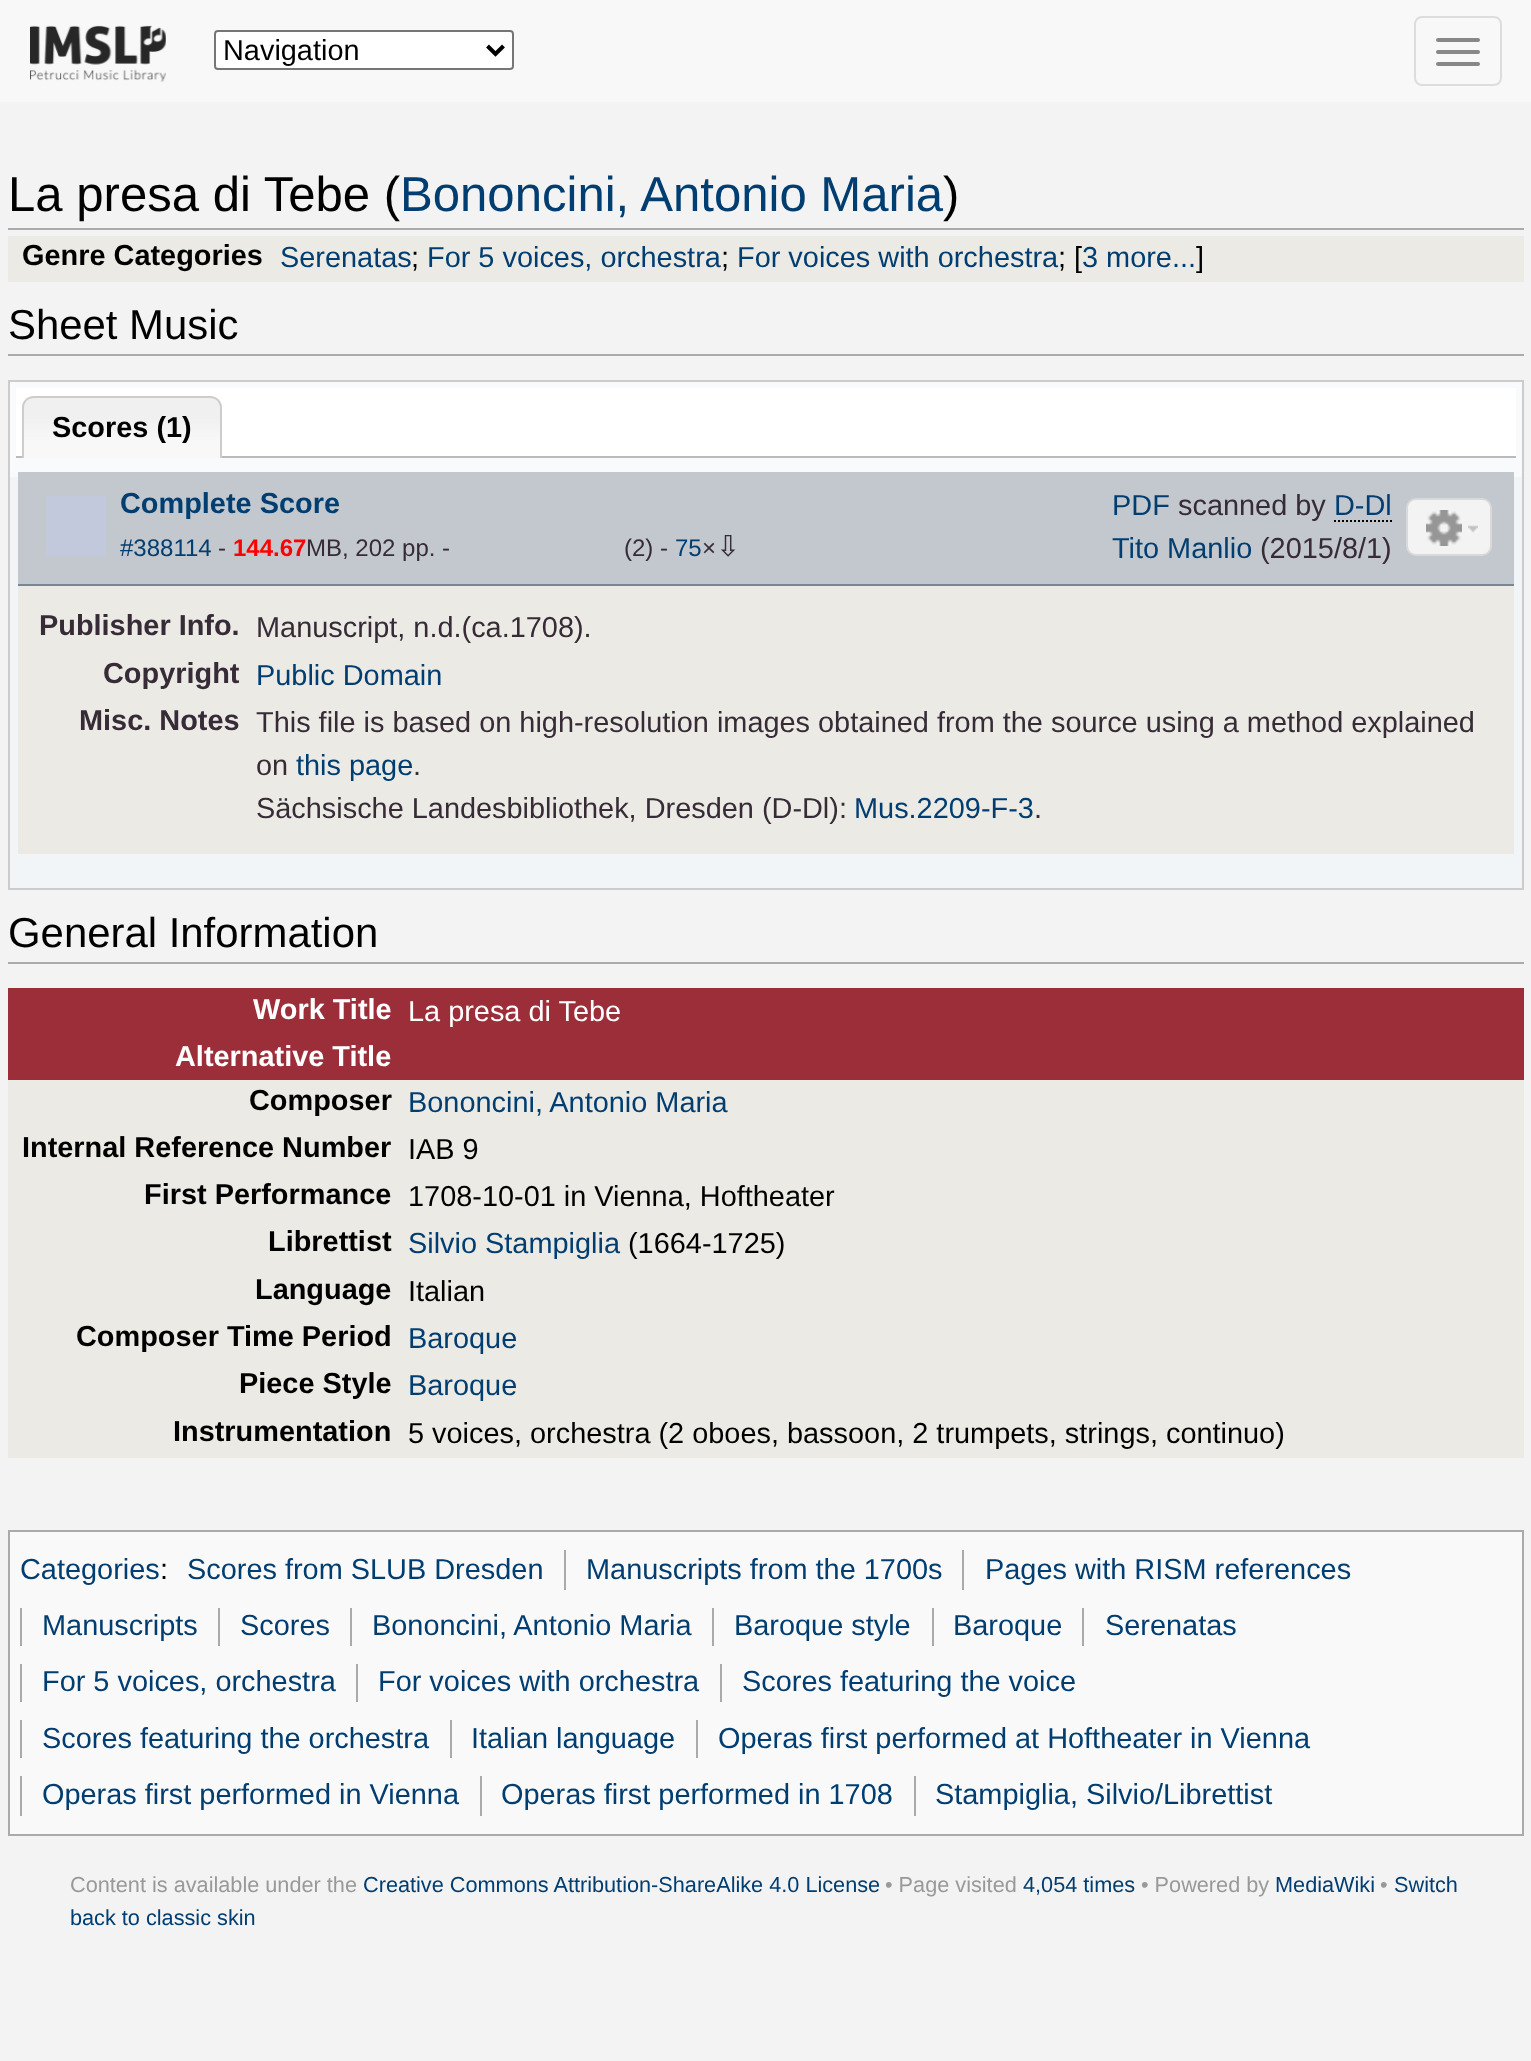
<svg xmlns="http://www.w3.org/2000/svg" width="1531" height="2061">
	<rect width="100%" height="100%" fill="#F3F3F3" />
	<rect x="0" y="0" width="1531" height="102" fill="#F8F8F8" />
	<image x="30" y="25" width="136" height="57" href="assets/img1.png" />
	<rect x="215" y="31" width="298" height="38" rx="3" fill="#FFFFFF" stroke="#767676" stroke-width="2" />
	<path d="M487.5 46L495.5 54L503.5 46" fill="none" stroke="#000000" stroke-width="4" />
	<text x="223" y="60" font-family="Liberation Sans" font-size="28.9" fill="#000000">Navigation</text>
	<rect x="1415" y="17" width="86" height="68" rx="7" fill="none" stroke="#DDDDDD" stroke-width="2" />
	<rect x="1436" y="38" width="44" height="4" rx="2" fill="#888888" />
	<rect x="1436" y="50" width="44" height="4" rx="2" fill="#888888" />
	<rect x="1436" y="62" width="44" height="4" rx="2" fill="#888888" />
	<rect x="8" y="228" width="1516" height="2" fill="#AAAAAA" />
	<text x="8" y="211" font-family="Liberation Sans" font-size="49.1" fill="#000000">La presa di Tebe (</text>
	<text x="400" y="211" font-family="Liberation Sans" font-size="49.1" fill="#003D70">Bononcini, Antonio Maria</text>
	<text x="943" y="211" font-family="Liberation Sans" font-size="49.1" fill="#000000">)</text>
	<rect x="8" y="236" width="1516" height="46" fill="#EBEAE4" />
	<text x="22" y="265" font-family="Liberation Sans" font-size="28.9" font-weight="700" fill="#000000">Genre Categories</text>
	<text x="280" y="267" font-family="Liberation Sans" font-size="28.9" fill="#003D70">Serenatas</text>
	<text x="411" y="267" font-family="Liberation Sans" font-size="28.9" fill="#000000">;</text>
	<text x="427" y="267" font-family="Liberation Sans" font-size="28.9" fill="#003D70">For 5 voices, orchestra</text>
	<text x="721" y="267" font-family="Liberation Sans" font-size="28.9" fill="#000000">;</text>
	<text x="737" y="267" font-family="Liberation Sans" font-size="28.9" fill="#003D70">For voices with orchestra</text>
	<text x="1058" y="267" font-family="Liberation Sans" font-size="28.9" fill="#000000">; [</text>
	<text x="1082" y="267" font-family="Liberation Sans" font-size="28.9" fill="#003D70">3 more...</text>
	<text x="1196" y="267" font-family="Liberation Sans" font-size="28.9" fill="#000000">]</text>
	<rect x="8" y="354" width="1516" height="2" fill="#AAAAAA" />
	<text x="8" y="339" font-family="Liberation Sans" font-size="41.9" fill="#000000">Sheet Music</text>
	<rect x="10" y="477" width="1512" height="411" fill="#F2F5F7" />
	<rect x="10" y="382" width="1512" height="95" fill="#F9FAFB" />
	<rect x="9" y="381" width="1514" height="508" fill="none" stroke="#CCCCCC" stroke-width="2" />
	<rect x="16" y="388" width="1500" height="68" fill="#FFFFFF" />
	<rect x="16" y="456" width="1500" height="2" fill="#BBBBBB" />
	<path d="M34 396H210C216.5 396 222 401.5 222 408V458H22V408C22 401.5 27.5 396 34 396Z" fill="#F0F0F0" />
	<image x="22" y="399" width="200" height="59" href="assets/img2.png" />
	<path d="M34 396H210C217 396 222 401 222 408V458H22V408C22 401 27 396 34 396ZM34 398H210C216 398 220 402 220 408V458H24V408C24 402 28 398 34 398Z" fill="#CCCCCC" fill-rule="evenodd" />
	<text x="52" y="437" font-family="Liberation Sans" font-size="28.9" font-weight="700" fill="#000000">Scores (1)</text>
	<rect x="18" y="472" width="1496" height="112" fill="#C2C8CD" />
	<rect x="18" y="584" width="1496" height="2" fill="#788791" />
	<rect x="46" y="496" width="60" height="60" fill="#C3C9DC" />
	<text x="120" y="513" font-family="Liberation Sans" font-size="28.9" font-weight="700" fill="#003D70">Complete Score</text>
	<text x="120" y="556" font-family="Liberation Sans" font-size="24" fill="#003D70">#388114</text>
	<text x="218" y="556" font-family="Liberation Sans" font-size="24" fill="#362B36">-</text>
	<text x="233" y="556" font-family="Liberation Sans" font-size="24" font-weight="700" fill="#FF0000">144.67</text>
	<g font-family="Liberation Sans" font-size="24" fill="#362B36">
		<text x="306" y="556">MB, 202 pp. -</text>
		<text x="624" y="556">(2) -</text>
	</g>
	<text x="675" y="556" font-family="Liberation Sans" font-size="24" fill="#003D70">75</text>
	<text x="702" y="556" font-family="Liberation Sans" font-size="24" fill="#362B36">×</text>
	<text x="716" y="556" font-family="DejaVu Sans" font-size="28.9" fill="#362B36">⇩</text>
	<text x="1112" y="515" font-family="Liberation Sans" font-size="28.9" fill="#003D70">PDF</text>
	<text x="1178" y="515" font-family="Liberation Sans" font-size="28.9" fill="#362B36">scanned by</text>
	<text x="1334" y="515" font-family="Liberation Sans" font-size="28.9" fill="#003D70">D-Dl</text>
	<path d="M1334 521H1392" fill="none" stroke="#000000" stroke-width="2" stroke-dasharray="2 2" />
	<text x="1112" y="558" font-family="Liberation Sans" font-size="28.9" fill="#003D70">Tito Manlio</text>
	<text x="1260" y="558" font-family="Liberation Sans" font-size="28.9" fill="#362B36">(2015/8/1)</text>
	<rect x="1407" y="499" width="84" height="56" rx="9" fill="#F3F3F3" stroke="#D9D9D9" stroke-width="2" />
	<image x="1426" y="510" width="36" height="36" href="assets/img3.png" />
	<image x="1468" y="525" width="10" height="8" href="assets/img4.png" />
	<rect x="18" y="586" width="1496" height="268" fill="#EBEAE4" />
	<text x="39" y="635" font-family="Liberation Sans" font-size="28.9" font-weight="700" fill="#362B36">Publisher Info.</text>
	<text x="256" y="637" font-family="Liberation Sans" font-size="28.9" fill="#362B36">Manuscript, n.d.(ca.1708).</text>
	<text x="103" y="683" font-family="Liberation Sans" font-size="28.9" font-weight="700" fill="#362B36">Copyright</text>
	<text x="256" y="685" font-family="Liberation Sans" font-size="28.9" fill="#003D70">Public Domain</text>
	<text x="79" y="730" font-family="Liberation Sans" font-size="28.9" font-weight="700" fill="#362B36">Misc. Notes</text>
	<g font-family="Liberation Sans" font-size="28.9" fill="#362B36">
		<text x="256" y="732">This file is based on high-resolution images obtained from the source using a method explained</text>
		<text x="256" y="775">on</text>
	</g>
	<text x="296" y="775" font-family="Liberation Sans" font-size="28.9" fill="#003D70">this page</text>
	<g font-family="Liberation Sans" font-size="28.9" fill="#362B36">
		<text x="413" y="775">.</text>
		<text x="256" y="818">Sächsische Landesbibliothek, Dresden (D-Dl):</text>
	</g>
	<text x="854" y="818" font-family="Liberation Sans" font-size="28.9" fill="#003D70">Mus.2209-F-3</text>
	<text x="1034" y="818" font-family="Liberation Sans" font-size="28.9" fill="#362B36">.</text>
	<rect x="8" y="962" width="1516" height="2" fill="#AAAAAA" />
	<text x="8" y="947" font-family="Liberation Sans" font-size="41.9" fill="#000000">General Information</text>
	<rect x="8" y="1080" width="1516" height="378" fill="#EBEAE4" />
	<rect x="8" y="988" width="1516" height="48" fill="#9C2E3A" />
	<text x="253" y="1019" font-family="Liberation Sans" font-size="28.9" font-weight="700" fill="#FFFFFF">Work Title</text>
	<text x="408" y="1021" font-family="Liberation Sans" font-size="28.9" fill="#FFFFFF">La presa di Tebe</text>
	<rect x="8" y="1036" width="1516" height="44" fill="#9C2E3A" />
	<text x="175" y="1066" font-family="Liberation Sans" font-size="28.9" font-weight="700" fill="#FFFFFF">Alternative Title</text>
	<text x="249" y="1110" font-family="Liberation Sans" font-size="28.9" font-weight="700" fill="#000000">Composer</text>
	<text x="408" y="1112" font-family="Liberation Sans" font-size="28.9" fill="#003D70">Bononcini, Antonio Maria</text>
	<text x="22" y="1157" font-family="Liberation Sans" font-size="28.9" font-weight="700" fill="#000000">Internal Reference Number</text>
	<text x="408" y="1159" font-family="Liberation Sans" font-size="28.9" fill="#000000">IAB 9</text>
	<text x="144" y="1204" font-family="Liberation Sans" font-size="28.9" font-weight="700" fill="#000000">First Performance</text>
	<text x="408" y="1206" font-family="Liberation Sans" font-size="28.9" fill="#000000">1708-10-01 in Vienna, Hoftheater</text>
	<text x="268" y="1251" font-family="Liberation Sans" font-size="28.9" font-weight="700" fill="#000000">Librettist</text>
	<text x="408" y="1253" font-family="Liberation Sans" font-size="28.9" fill="#003D70">Silvio Stampiglia</text>
	<text x="628" y="1253" font-family="Liberation Sans" font-size="28.9" fill="#000000">(1664-1725)</text>
	<text x="255" y="1299" font-family="Liberation Sans" font-size="28.9" font-weight="700" fill="#000000">Language</text>
	<text x="408" y="1301" font-family="Liberation Sans" font-size="28.9" fill="#000000">Italian</text>
	<text x="76" y="1346" font-family="Liberation Sans" font-size="28.9" font-weight="700" fill="#000000">Composer Time Period</text>
	<text x="408" y="1348" font-family="Liberation Sans" font-size="28.9" fill="#003D70">Baroque</text>
	<text x="239" y="1393" font-family="Liberation Sans" font-size="28.9" font-weight="700" fill="#000000">Piece Style</text>
	<text x="408" y="1395" font-family="Liberation Sans" font-size="28.9" fill="#003D70">Baroque</text>
	<text x="173" y="1441" font-family="Liberation Sans" font-size="28.9" font-weight="700" fill="#000000">Instrumentation</text>
	<text x="408" y="1443" font-family="Liberation Sans" font-size="28.9" fill="#000000">5 voices, orchestra (2 oboes, bassoon, 2 trumpets, strings, continuo)</text>
	<rect x="9" y="1531" width="1514" height="304" fill="#F9F9F9" stroke="#AAAAAA" stroke-width="2" />
	<g font-family="Liberation Sans" font-size="28.9" fill="#003D70">
		<text x="20" y="1579">Categories</text>
		<text x="187" y="1579">Scores from SLUB Dresden</text>
	</g>
	<rect x="564" y="1550" width="2" height="40" fill="#AAAAAA" />
	<text x="586" y="1579" font-family="Liberation Sans" font-size="28.9" fill="#003D70">Manuscripts from the 1700s</text>
	<rect x="962" y="1550" width="2" height="40" fill="#AAAAAA" />
	<text x="985" y="1579" font-family="Liberation Sans" font-size="28.9" fill="#003D70">Pages with RISM references</text>
	<rect x="20" y="1608" width="2" height="38" fill="#AAAAAA" />
	<text x="42" y="1635" font-family="Liberation Sans" font-size="28.9" fill="#003D70">Manuscripts</text>
	<rect x="218" y="1608" width="2" height="38" fill="#AAAAAA" />
	<text x="240" y="1635" font-family="Liberation Sans" font-size="28.9" fill="#003D70">Scores</text>
	<rect x="350" y="1608" width="2" height="38" fill="#AAAAAA" />
	<text x="372" y="1635" font-family="Liberation Sans" font-size="28.9" fill="#003D70">Bononcini, Antonio Maria</text>
	<rect x="712" y="1608" width="2" height="38" fill="#AAAAAA" />
	<text x="734" y="1635" font-family="Liberation Sans" font-size="28.9" fill="#003D70">Baroque style</text>
	<rect x="932" y="1608" width="2" height="38" fill="#AAAAAA" />
	<text x="953" y="1635" font-family="Liberation Sans" font-size="28.9" fill="#003D70">Baroque</text>
	<rect x="1082" y="1608" width="2" height="38" fill="#AAAAAA" />
	<text x="1105" y="1635" font-family="Liberation Sans" font-size="28.9" fill="#003D70">Serenatas</text>
	<rect x="20" y="1664" width="2" height="38" fill="#AAAAAA" />
	<text x="42" y="1691" font-family="Liberation Sans" font-size="28.9" fill="#003D70">For 5 voices, orchestra</text>
	<rect x="356" y="1664" width="2" height="38" fill="#AAAAAA" />
	<text x="378" y="1691" font-family="Liberation Sans" font-size="28.9" fill="#003D70">For voices with orchestra</text>
	<rect x="720" y="1664" width="2" height="38" fill="#AAAAAA" />
	<text x="742" y="1691" font-family="Liberation Sans" font-size="28.9" fill="#003D70">Scores featuring the voice</text>
	<rect x="20" y="1720" width="2" height="38" fill="#AAAAAA" />
	<text x="42" y="1748" font-family="Liberation Sans" font-size="28.9" fill="#003D70">Scores featuring the orchestra</text>
	<rect x="450" y="1720" width="2" height="38" fill="#AAAAAA" />
	<text x="471" y="1748" font-family="Liberation Sans" font-size="28.9" fill="#003D70">Italian language</text>
	<rect x="696" y="1720" width="2" height="38" fill="#AAAAAA" />
	<text x="718" y="1748" font-family="Liberation Sans" font-size="28.9" fill="#003D70">Operas first performed at Hoftheater in Vienna</text>
	<rect x="20" y="1776" width="2" height="40" fill="#AAAAAA" />
	<text x="42" y="1804" font-family="Liberation Sans" font-size="28.9" fill="#003D70">Operas first performed in Vienna</text>
	<rect x="480" y="1776" width="2" height="40" fill="#AAAAAA" />
	<text x="501" y="1804" font-family="Liberation Sans" font-size="28.9" fill="#003D70">Operas first performed in 1708</text>
	<rect x="914" y="1776" width="2" height="40" fill="#AAAAAA" />
	<text x="935" y="1804" font-family="Liberation Sans" font-size="28.9" fill="#003D70">Stampiglia, Silvio/Librettist</text>
	<text x="160" y="1579" font-family="Liberation Sans" font-size="28.9" fill="#000000">:</text>
	<text x="70" y="1892" font-family="Liberation Sans" font-size="21.7" fill="#999999">Content is available under the</text>
	<text x="363" y="1892" font-family="Liberation Sans" font-size="21.7" fill="#003D70">Creative Commons Attribution-ShareAlike 4.0 License</text>
	<text x="885" y="1892" font-family="Liberation Sans" font-size="21.7" fill="#999999">• Page visited</text>
	<text x="1023" y="1892" font-family="Liberation Sans" font-size="21.7" fill="#003D70">4,054 times</text>
	<text x="1141" y="1892" font-family="Liberation Sans" font-size="21.7" fill="#999999">• Powered by</text>
	<text x="1275" y="1892" font-family="Liberation Sans" font-size="21.7" fill="#003D70">MediaWiki</text>
	<text x="1380" y="1892" font-family="Liberation Sans" font-size="21.7" fill="#999999">•</text>
	<g font-family="Liberation Sans" font-size="21.7" fill="#003D70">
		<text x="1394" y="1892">Switch</text>
		<text x="70" y="1925">back to classic skin</text>
	</g>
</svg>
